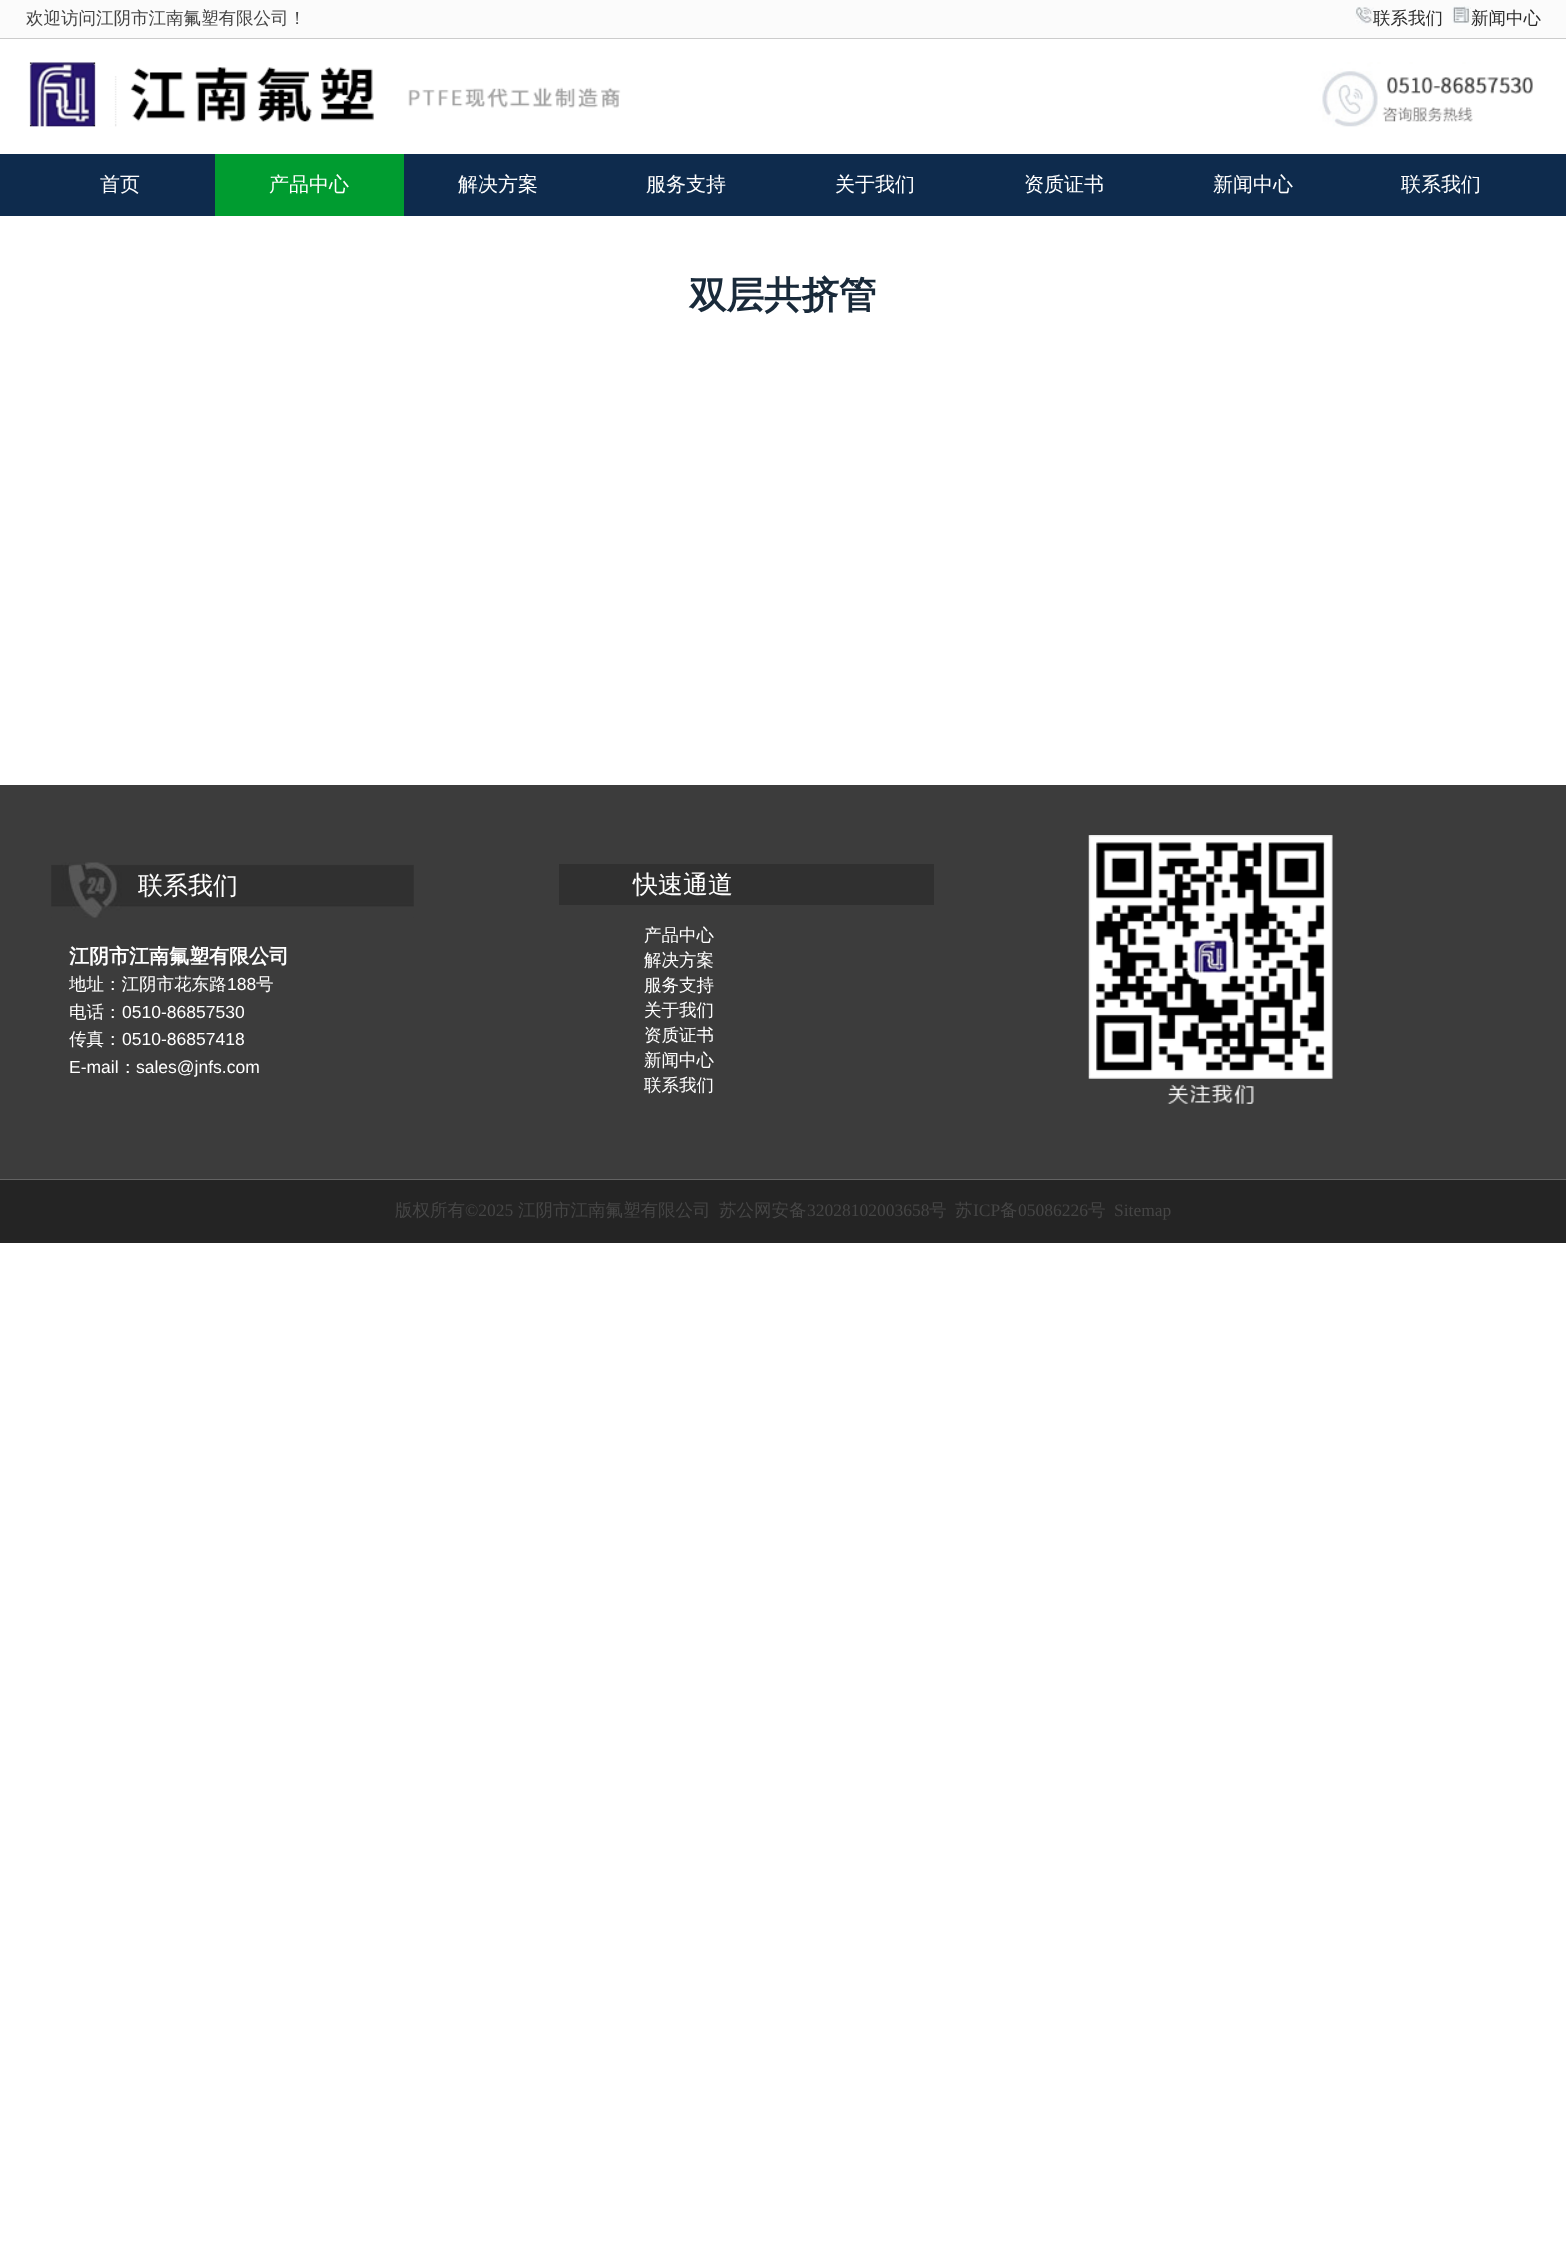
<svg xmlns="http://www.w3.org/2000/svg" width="1566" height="2241">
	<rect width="100%" height="100%" fill="#FFFFFF" />
	<rect x="0" y="0" width="1566" height="38" fill="#FBFBFB" />
	<rect x="0" y="38" width="1566" height="1" fill="#CCCCCC" />
	<text x="26" y="24" font-family="WenQuanYi Zen Hei" font-size="17.5" font-weight="500" fill="#454545">欢迎访问江阴市江南氟塑有限公司！</text>
	<image x="1355" y="7" width="19" height="17" href="assets/img1.png" />
	<text x="1373" y="24" font-family="WenQuanYi Zen Hei" font-size="17.5" font-weight="500" fill="#2A2A2A">联系我们</text>
	<image x="1452" y="6" width="19" height="18" href="assets/img2.png" />
	<text x="1471" y="24" font-family="WenQuanYi Zen Hei" font-size="17.5" font-weight="500" fill="#2A2A2A">新闻中心</text>
	<image x="29" y="62" width="1504" height="65" href="assets/img3.png" />
	<rect x="0" y="154" width="1566" height="62" fill="#0E2B4D" />
	<text x="100" y="191" font-family="WenQuanYi Zen Hei" font-size="20" font-weight="500" fill="#FFFFFF">首页</text>
	<rect x="215" y="154" width="189" height="62" fill="#009C30" />
	<g font-family="WenQuanYi Zen Hei" font-size="20" font-weight="500" fill="#FFFFFF">
		<text x="269" y="191">产品中心</text>
		<text x="458" y="191">解决方案</text>
		<text x="646" y="191">服务支持</text>
		<text x="835" y="191">关于我们</text>
		<text x="1024" y="191">资质证书</text>
		<text x="1213" y="191">新闻中心</text>
		<text x="1401" y="191">联系我们</text>
	</g>
	<text x="689" y="308" font-family="WenQuanYi Zen Hei" font-size="37.5" font-weight="700" fill="#192A3A">双层共挤管</text>
	<rect x="0" y="785" width="1566" height="394" fill="#3C3C3C" />
	<image x="51" y="862" width="363" height="56" href="assets/img4.png" />
	<text x="138" y="894" font-family="WenQuanYi Zen Hei" font-size="25" font-weight="500" fill="#FFFFFF">联系我们</text>
	<text x="69" y="963" font-family="WenQuanYi Zen Hei" font-size="20" font-weight="700" fill="#FFFFFF">江阴市江南氟塑有限公司</text>
	<text x="69" y="990" font-family="WenQuanYi Zen Hei" font-size="17.5" font-weight="500" fill="#FFFFFF">地址：江阴市花东路</text>
	<text x="227" y="990" font-family="Liberation Sans" font-size="17.5" fill="#FFFFFF">188</text>
	<g font-family="WenQuanYi Zen Hei" font-size="17.5" font-weight="500" fill="#FFFFFF">
		<text x="256" y="990">号</text>
		<text x="69" y="1018">电话：</text>
	</g>
	<text x="122" y="1018" font-family="Liberation Sans" font-size="17.5" fill="#FFFFFF">0510-86857530</text>
	<text x="69" y="1045" font-family="WenQuanYi Zen Hei" font-size="17.5" font-weight="500" fill="#FFFFFF">传真：</text>
	<g font-family="Liberation Sans" font-size="17.5" fill="#FFFFFF">
		<text x="122" y="1045">0510-86857418</text>
		<text x="69" y="1073">E-mail</text>
	</g>
	<text x="119" y="1073" font-family="WenQuanYi Zen Hei" font-size="17.5" font-weight="500" fill="#FFFFFF">：</text>
	<text x="136" y="1073" font-family="Liberation Sans" font-size="17.5" fill="#FFFFFF">sales@jnfs.com</text>
	<rect x="559" y="864" width="375" height="41" fill="#303030" />
	<text x="633" y="893" font-family="WenQuanYi Zen Hei" font-size="25" font-weight="500" fill="#FFFFFF">快速通道</text>
	<g font-family="WenQuanYi Zen Hei" font-size="17.5" font-weight="500" fill="#FFFFFF">
		<text x="644" y="941">产品中心</text>
		<text x="644" y="966">解决方案</text>
		<text x="644" y="991">服务支持</text>
		<text x="644" y="1016">关于我们</text>
		<text x="644" y="1041">资质证书</text>
		<text x="644" y="1066">新闻中心</text>
		<text x="644" y="1091">联系我们</text>
	</g>
	<image x="1088" y="835" width="245" height="269" href="assets/img5.png" />
	<rect x="0" y="1180" width="1566" height="63" fill="#242424" />
	<rect x="0" y="1179" width="1566" height="1" fill="#636363" />
	<text x="395" y="1216" font-family="WenQuanYi Zen Hei" font-size="17.5" font-weight="500" fill="#454545">版权所有</text>
	<text x="465" y="1216" font-family="Liberation Serif" font-size="17.5" fill="#454545">©2025</text>
	<g font-family="WenQuanYi Zen Hei" font-size="17.5" font-weight="500" fill="#454545">
		<text x="518" y="1216">江阴市江南氟塑有限公司</text>
		<text x="719" y="1216">苏公网安备</text>
	</g>
	<text x="807" y="1216" font-family="Liberation Serif" font-size="17.5" fill="#454545">32028102003658</text>
	<g font-family="WenQuanYi Zen Hei" font-size="17.5" font-weight="500" fill="#454545">
		<text x="929" y="1216">号</text>
		<text x="955" y="1216">苏</text>
	</g>
	<text x="973" y="1216" font-family="Liberation Serif" font-size="17.5" fill="#454545">ICP</text>
	<text x="1000" y="1216" font-family="WenQuanYi Zen Hei" font-size="17.5" font-weight="500" fill="#454545">备</text>
	<text x="1018" y="1216" font-family="Liberation Serif" font-size="17.5" fill="#454545">05086226</text>
	<text x="1088" y="1216" font-family="WenQuanYi Zen Hei" font-size="17.5" font-weight="500" fill="#454545">号</text>
	<text x="1114" y="1216" font-family="Liberation Serif" font-size="17.5" fill="#454545">Sitemap</text>
</svg>
